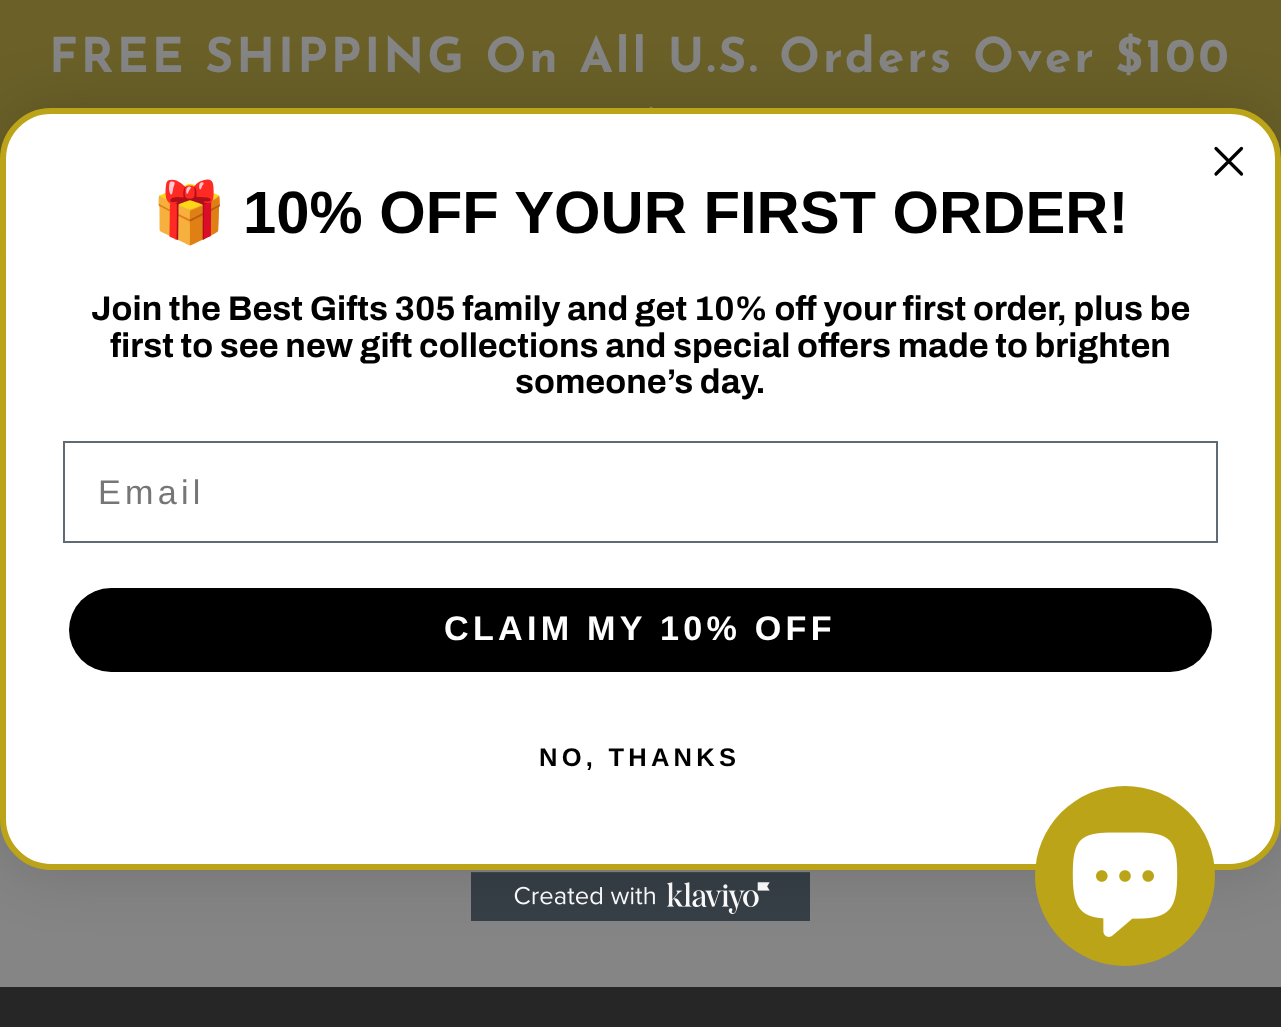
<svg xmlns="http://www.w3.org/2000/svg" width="1281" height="1027">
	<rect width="100%" height="100%" fill="#858585" />
	<rect x="0" y="0" width="1281" height="159" fill="#6A6028" />
	<text x="49" y="72" font-family="Josefin Sans" font-size="48" font-weight="700" letter-spacing="3" fill="#858585">FREE SHIPPING On All U.S. Orders Over $100</text>
	<image x="649" y="106" width="4" height="2" href="assets/img1.png" />
	<image x="471" y="872" width="339" height="49" href="assets/img2.png" />
	<rect x="0" y="108" width="1281" height="762" rx="51" fill="#000000" fill-opacity="0.15" filter="blur(32px)" />
	<rect x="3" y="111" width="1275" height="756" rx="48" fill="#FFFFFF" stroke="#BCA419" stroke-width="6" />
	<path d="M1216 148.5L1241.5 174M1216 174L1241.5 148.5Z" fill="none" stroke="#000000" stroke-width="3.2" stroke-linecap="round" stroke-linejoin="round" />
	<text x="152" y="233" font-family="Noto Color Emoji" font-size="59.75" fill="#000000">🎁</text>
	<text x="243" y="233" font-family="Liberation Sans" font-size="59.75" font-weight="700" fill="#000000">10% OFF YOUR FIRST ORDER!</text>
	<g font-family="Archivo" font-size="34.15" font-weight="700" fill="#000000">
		<text x="91" y="320">Join the Best Gifts 305 family and get 10% off your first order, plus be</text>
		<text x="110" y="357">first to see new gift collections and special offers made to brighten</text>
		<text x="515" y="393">someone’s day.</text>
	</g>
	<rect x="64" y="442" width="1153" height="100" fill="none" stroke="#606A72" stroke-width="2" />
	<text x="98" y="504" font-family="Liberation Sans" font-size="34.15" letter-spacing="4.25" fill="#767676">Email</text>
	<rect x="69" y="588" width="1143" height="84" rx="42" fill="#000000" />
	<text x="444" y="640" font-family="Liberation Sans" font-size="34.15" font-weight="700" letter-spacing="4.25" fill="#FFFFFF">CLAIM MY 10% OFF</text>
	<text x="539" y="766" font-family="Liberation Sans" font-size="25.5" font-weight="700" letter-spacing="4.25" fill="#000000">NO, THANKS</text>
	<circle cx="1125" cy="876" r="90" fill="#BCA418" />
	<image x="1072" y="832" width="106" height="105" href="assets/img3.png" />
	<rect x="0" y="987" width="1281" height="40" fill="#262626" />
</svg>
